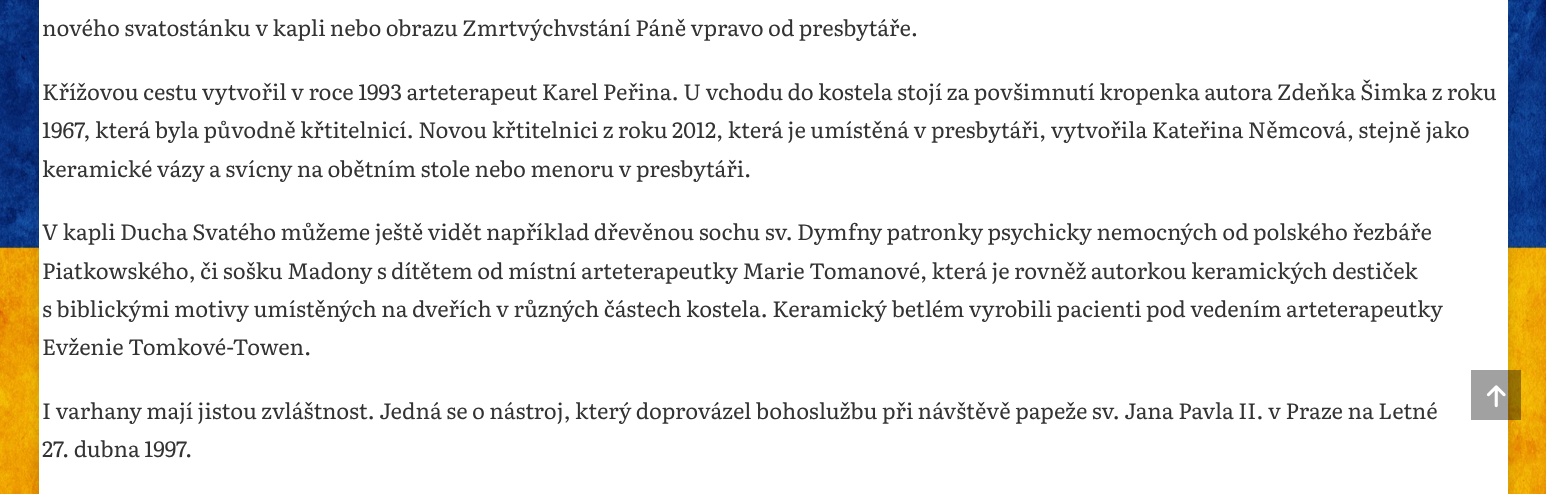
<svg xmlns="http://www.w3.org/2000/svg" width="1546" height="494">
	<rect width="100%" height="100%" fill="#FFFFFF" />
	<image x="0" y="0" width="1546" height="494" href="assets/img1.png" />
	<rect x="39" y="-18" width="1469" height="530" fill="#000000" fill-opacity="0.16" filter="blur(6px)" />
	<rect x="39" y="0" width="1469" height="494" fill="#FFFFFF" />
	<g font-family="Literata" font-size="22" fill="#333333">
		<text x="42" y="36">nového svatostánku v kapli nebo obrazu Zmrtvýchvstání Páně vpravo od presbytáře.</text>
		<text x="42" y="100">Křížovou cestu vytvořil v roce 1993 arteterapeut Karel Peřina. U vchodu do kostela stojí za povšimnutí kropenka autora Zdeňka Šimka z roku</text>
		<text x="42" y="138">1967, která byla původně křtitelnicí. Novou křtitelnici z roku 2012, která je umístěná v presbytáři, vytvořila Kateřina Němcová, stejně jako</text>
		<text x="42" y="177">keramické vázy a svícny na obětním stole nebo menoru v presbytáři.</text>
		<text x="42" y="240">V kapli Ducha Svatého můžeme ještě vidět například dřevěnou sochu sv. Dymfny patronky psychicky nemocných od polského řezbáře</text>
		<text x="42" y="279">Piatkowského, či sošku Madony s dítětem od místní arteterapeutky Marie Tomanové, která je rovněž autorkou keramických destiček</text>
		<text x="42" y="317">s biblickými motivy umístěných na dveřích v různých částech kostela. Keramický betlém vyrobili pacienti pod vedením arteterapeutky</text>
		<text x="42" y="355">Evženie Tomkové-Towen.</text>
		<text x="42" y="419">I varhany mají jistou zvláštnost. Jedná se o nástroj, který doprovázel bohoslužbu při návštěvě papeže sv. Jana Pavla II. v Praze na Letné</text>
		<text x="42" y="457">27. dubna 1997.</text>
	</g>
	<rect x="1471" y="370" width="50" height="50" fill="#000000" fill-opacity="0.37" />
	<image x="1486" y="385" width="20" height="23" href="assets/img2.png" />
</svg>
